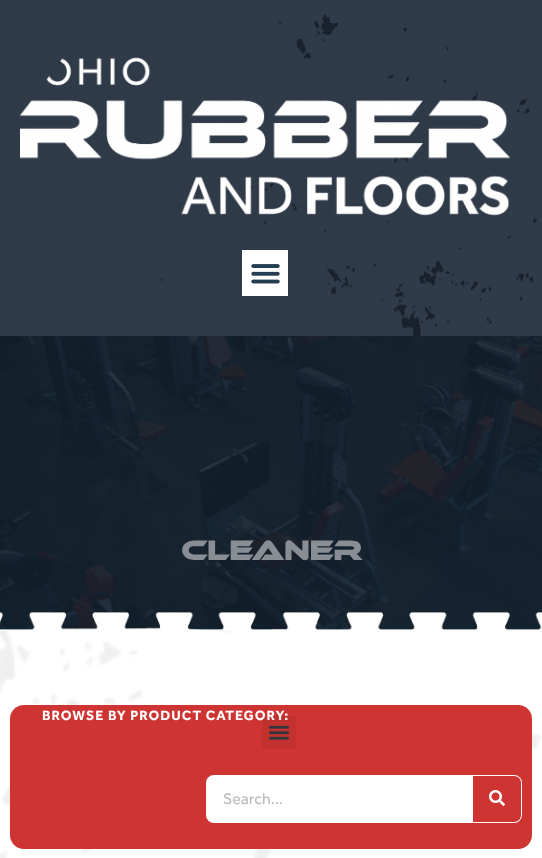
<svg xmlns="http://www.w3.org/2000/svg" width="542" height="858">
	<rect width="100%" height="100%" fill="#FFFFFF" />
	<image x="0" y="631" width="541" height="227" href="assets/img1.png" />
	<rect x="0" y="0" width="542" height="336" fill="#303B4A" />
	<image x="58" y="14" width="479" height="322" href="assets/img2.png" />
	<image x="20" y="57" width="490" height="159" href="assets/img3.png" />
	<rect x="242" y="250" width="46" height="46" fill="#FFFFFF" />
	<image x="251" y="264" width="29" height="20" href="assets/img4.png" />
	<image x="0" y="336" width="542" height="295" href="assets/img5.png" />
	<text x="181" y="560" font-family="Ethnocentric" font-size="28" font-weight="700" fill="#898E95">Cleaner</text>
	<rect x="10" y="705" width="522" height="144" rx="14" fill="#CE3431" />
	<text x="42" y="720" font-family="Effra" font-size="14" font-weight="700" letter-spacing="1" fill="#FFFFFF">BROWSE BY PRODUCT CATEGORY:</text>
	<rect x="262" y="716" width="34" height="33" fill="#000000" fill-opacity="0.05" />
	<image x="269" y="725" width="20" height="15" href="assets/img6.png" />
	<rect x="206" y="775" width="316" height="48" rx="8" fill="#FFFFFF" />
	<text x="223" y="804" font-family="Effra" font-size="16" fill="#B8BBBF">Search...</text>
	<path d="M473 776H514C518 776 521 779 521 783V815C521 819 518 822 514 822H473Z" fill="#CE3431" />
	<image x="489" y="790" width="16" height="16" href="assets/img7.png" />
</svg>
